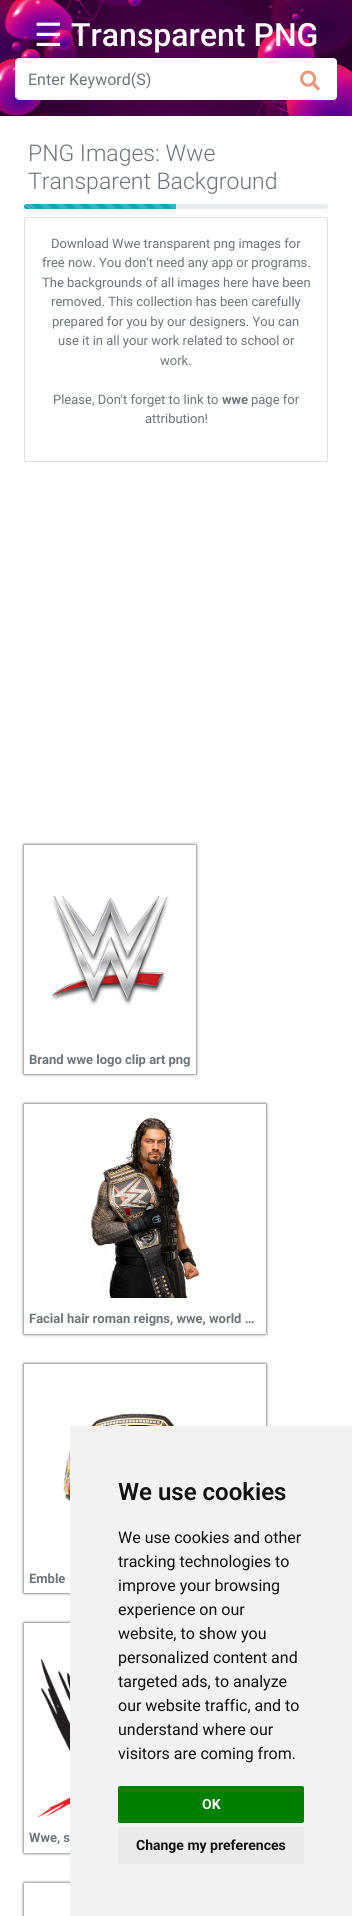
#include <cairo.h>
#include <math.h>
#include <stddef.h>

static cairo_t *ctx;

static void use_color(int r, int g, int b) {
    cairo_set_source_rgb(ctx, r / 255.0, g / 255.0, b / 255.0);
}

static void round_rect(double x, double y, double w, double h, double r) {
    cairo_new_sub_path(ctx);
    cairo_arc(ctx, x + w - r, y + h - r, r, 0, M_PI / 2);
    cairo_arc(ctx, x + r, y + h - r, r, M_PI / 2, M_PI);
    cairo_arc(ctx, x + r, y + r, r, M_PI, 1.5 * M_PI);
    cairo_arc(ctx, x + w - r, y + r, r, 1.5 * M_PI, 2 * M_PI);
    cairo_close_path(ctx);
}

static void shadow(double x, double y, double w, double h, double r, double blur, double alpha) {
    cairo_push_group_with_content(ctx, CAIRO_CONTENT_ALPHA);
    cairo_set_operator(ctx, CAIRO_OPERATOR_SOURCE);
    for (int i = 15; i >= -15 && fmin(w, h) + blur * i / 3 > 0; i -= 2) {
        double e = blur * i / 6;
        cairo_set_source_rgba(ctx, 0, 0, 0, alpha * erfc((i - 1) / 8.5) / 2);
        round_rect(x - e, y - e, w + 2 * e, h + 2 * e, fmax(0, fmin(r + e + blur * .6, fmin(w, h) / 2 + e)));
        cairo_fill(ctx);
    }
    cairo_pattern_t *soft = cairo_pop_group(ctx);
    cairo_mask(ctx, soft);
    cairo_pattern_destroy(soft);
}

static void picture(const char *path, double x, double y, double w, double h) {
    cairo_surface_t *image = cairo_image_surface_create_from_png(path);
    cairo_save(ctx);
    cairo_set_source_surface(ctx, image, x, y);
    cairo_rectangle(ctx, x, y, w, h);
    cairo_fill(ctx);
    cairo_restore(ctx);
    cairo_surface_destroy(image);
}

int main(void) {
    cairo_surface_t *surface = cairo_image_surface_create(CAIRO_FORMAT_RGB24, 352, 1916);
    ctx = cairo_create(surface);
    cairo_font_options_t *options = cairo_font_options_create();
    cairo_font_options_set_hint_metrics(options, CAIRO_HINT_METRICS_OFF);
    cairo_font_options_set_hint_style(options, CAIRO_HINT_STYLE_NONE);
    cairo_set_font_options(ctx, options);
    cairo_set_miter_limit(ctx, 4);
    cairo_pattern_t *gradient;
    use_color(255, 255, 255);
    cairo_paint(ctx);
    picture("img1.png", 0, 0, 352, 116);
    cairo_select_font_face(ctx, "DejaVu Sans", CAIRO_FONT_SLANT_NORMAL, CAIRO_FONT_WEIGHT_NORMAL);
    cairo_set_font_size(ctx, 32);
    use_color(255, 255, 255);
    cairo_move_to(ctx, 34, 46);
    cairo_show_text(ctx, "☰");
    cairo_select_font_face(ctx, "Roboto Medium", CAIRO_FONT_SLANT_NORMAL, CAIRO_FONT_WEIGHT_NORMAL);
    cairo_move_to(ctx, 71, 46);
    cairo_show_text(ctx, "Transparent PNG");
    cairo_new_path(ctx);
    cairo_move_to(ctx, 19, 59);
    cairo_line_to(ctx, 284, 59);
    cairo_line_to(ctx, 284, 99);
    cairo_line_to(ctx, 19, 99);
    cairo_curve_to(ctx, 17.5, 99, 16, 97.5, 16, 96);
    cairo_line_to(ctx, 16, 62);
    cairo_curve_to(ctx, 16, 60.5, 17.5, 59, 19, 59);
    cairo_close_path(ctx);
    cairo_fill(ctx);
    cairo_set_fill_rule(ctx, CAIRO_FILL_RULE_EVEN_ODD);
    cairo_new_path(ctx);
    cairo_move_to(ctx, 19, 58);
    cairo_line_to(ctx, 284, 58);
    cairo_line_to(ctx, 284, 100);
    cairo_line_to(ctx, 19, 100);
    cairo_curve_to(ctx, 17, 100, 15, 98, 15, 96);
    cairo_line_to(ctx, 15, 62);
    cairo_curve_to(ctx, 15, 60, 17, 58, 19, 58);
    cairo_close_path(ctx);
    cairo_move_to(ctx, 19, 59);
    cairo_line_to(ctx, 284, 59);
    cairo_line_to(ctx, 284, 99);
    cairo_line_to(ctx, 19, 99);
    cairo_curve_to(ctx, 17, 99, 16, 98, 16, 96);
    cairo_line_to(ctx, 16, 62);
    cairo_curve_to(ctx, 16, 60, 17, 59, 19, 59);
    cairo_close_path(ctx);
    cairo_fill(ctx);
    cairo_select_font_face(ctx, "Roboto", CAIRO_FONT_SLANT_NORMAL, CAIRO_FONT_WEIGHT_NORMAL);
    cairo_set_font_size(ctx, 16);
    use_color(108, 117, 125);
    cairo_move_to(ctx, 28, 85);
    cairo_show_text(ctx, "Enter Keyword(S)");
    use_color(255, 255, 255);
    cairo_new_path(ctx);
    cairo_move_to(ctx, 284, 58);
    cairo_line_to(ctx, 333, 58);
    cairo_curve_to(ctx, 335, 58, 337, 60, 337, 62);
    cairo_line_to(ctx, 337, 96);
    cairo_curve_to(ctx, 337, 98, 335, 100, 333, 100);
    cairo_line_to(ctx, 284, 100);
    cairo_close_path(ctx);
    cairo_fill(ctx);
    cairo_new_path(ctx);
    cairo_move_to(ctx, 284, 58);
    cairo_line_to(ctx, 333, 58);
    cairo_curve_to(ctx, 335, 58, 337, 60, 337, 62);
    cairo_line_to(ctx, 337, 96);
    cairo_curve_to(ctx, 337, 98, 335, 100, 333, 100);
    cairo_line_to(ctx, 284, 100);
    cairo_close_path(ctx);
    cairo_move_to(ctx, 284, 59);
    cairo_line_to(ctx, 333, 59);
    cairo_curve_to(ctx, 335, 59, 336, 60, 336, 62);
    cairo_line_to(ctx, 336, 96);
    cairo_curve_to(ctx, 336, 98, 335, 99, 333, 99);
    cairo_line_to(ctx, 284, 99);
    cairo_close_path(ctx);
    cairo_fill(ctx);
    picture("img2.png", 300, 70, 20, 21);
    cairo_select_font_face(ctx, "Roboto Light", CAIRO_FONT_SLANT_NORMAL, CAIRO_FONT_WEIGHT_NORMAL);
    cairo_set_font_size(ctx, 23);
    use_color(108, 117, 125);
    cairo_move_to(ctx, 28, 161);
    cairo_show_text(ctx, "PNG Images: Wwe");
    cairo_move_to(ctx, 28, 189);
    cairo_show_text(ctx, "Transparent Background");
    use_color(233, 236, 239);
    round_rect(24, 204, 304, 5, 2.5);
    cairo_fill(ctx);
    use_color(23, 162, 184);
    cairo_new_path(ctx);
    cairo_move_to(ctx, 26.5, 204);
    cairo_line_to(ctx, 176, 204);
    cairo_line_to(ctx, 176, 209);
    cairo_line_to(ctx, 26.5, 209);
    cairo_curve_to(ctx, 25, 209, 24, 208, 24, 206.5);
    cairo_curve_to(ctx, 24, 205, 25, 204, 26.5, 204);
    cairo_close_path(ctx);
    cairo_fill(ctx);
    gradient = cairo_pattern_create_linear(24, 220, 40, 204);
    cairo_pattern_add_color_stop_rgba(gradient, 0.25, 1, 1, 1, 0.15);
    cairo_pattern_add_color_stop_rgba(gradient, 0.25, 1, 1, 1, 0);
    cairo_pattern_add_color_stop_rgba(gradient, 0.5, 1, 1, 1, 0);
    cairo_pattern_add_color_stop_rgba(gradient, 0.5, 1, 1, 1, 0.15);
    cairo_pattern_add_color_stop_rgba(gradient, 0.75, 1, 1, 1, 0.15);
    cairo_pattern_add_color_stop_rgba(gradient, 0.75, 1, 1, 1, 0);
    cairo_pattern_add_color_stop_rgba(gradient, 1, 0, 0, 0, 0);
    cairo_set_source(ctx, gradient);
    cairo_pattern_destroy(gradient);
    cairo_new_path(ctx);
    cairo_move_to(ctx, 26.5, 204);
    cairo_line_to(ctx, 40, 204);
    cairo_line_to(ctx, 40, 209);
    cairo_line_to(ctx, 26.5, 209);
    cairo_curve_to(ctx, 25, 209, 24, 208, 24, 206.5);
    cairo_curve_to(ctx, 24, 205, 25, 204, 26.5, 204);
    cairo_close_path(ctx);
    cairo_fill(ctx);
    gradient = cairo_pattern_create_linear(40, 220, 56, 204);
    cairo_pattern_add_color_stop_rgba(gradient, 0.25, 0.227, 0.69, 0.765, 1);
    cairo_pattern_add_color_stop_rgba(gradient, 0.25, 0.09, 0.635, 0.722, 1);
    cairo_pattern_add_color_stop_rgba(gradient, 0.5, 0.09, 0.635, 0.722, 1);
    cairo_pattern_add_color_stop_rgba(gradient, 0.5, 0.227, 0.69, 0.765, 1);
    cairo_pattern_add_color_stop_rgba(gradient, 0.75, 0.227, 0.69, 0.765, 1);
    cairo_pattern_add_color_stop_rgba(gradient, 0.75, 0.09, 0.635, 0.722, 1);
    cairo_pattern_add_color_stop_rgba(gradient, 1, 0.09, 0.635, 0.722, 1);
    cairo_set_source(ctx, gradient);
    cairo_pattern_destroy(gradient);
    cairo_rectangle(ctx, 40, 204, 16, 5);
    cairo_fill(ctx);
    gradient = cairo_pattern_create_linear(56, 220, 72, 204);
    cairo_pattern_add_color_stop_rgba(gradient, 0.25, 0.227, 0.69, 0.765, 1);
    cairo_pattern_add_color_stop_rgba(gradient, 0.25, 0.09, 0.635, 0.722, 1);
    cairo_pattern_add_color_stop_rgba(gradient, 0.5, 0.09, 0.635, 0.722, 1);
    cairo_pattern_add_color_stop_rgba(gradient, 0.5, 0.227, 0.69, 0.765, 1);
    cairo_pattern_add_color_stop_rgba(gradient, 0.75, 0.227, 0.69, 0.765, 1);
    cairo_pattern_add_color_stop_rgba(gradient, 0.75, 0.09, 0.635, 0.722, 1);
    cairo_pattern_add_color_stop_rgba(gradient, 1, 0.09, 0.635, 0.722, 1);
    cairo_set_source(ctx, gradient);
    cairo_pattern_destroy(gradient);
    cairo_rectangle(ctx, 56, 204, 16, 5);
    cairo_fill(ctx);
    gradient = cairo_pattern_create_linear(72, 220, 88, 204);
    cairo_pattern_add_color_stop_rgba(gradient, 0.25, 0.227, 0.69, 0.765, 1);
    cairo_pattern_add_color_stop_rgba(gradient, 0.25, 0.09, 0.635, 0.722, 1);
    cairo_pattern_add_color_stop_rgba(gradient, 0.5, 0.09, 0.635, 0.722, 1);
    cairo_pattern_add_color_stop_rgba(gradient, 0.5, 0.227, 0.69, 0.765, 1);
    cairo_pattern_add_color_stop_rgba(gradient, 0.75, 0.227, 0.69, 0.765, 1);
    cairo_pattern_add_color_stop_rgba(gradient, 0.75, 0.09, 0.635, 0.722, 1);
    cairo_pattern_add_color_stop_rgba(gradient, 1, 0.09, 0.635, 0.722, 1);
    cairo_set_source(ctx, gradient);
    cairo_pattern_destroy(gradient);
    cairo_rectangle(ctx, 72, 204, 16, 5);
    cairo_fill(ctx);
    gradient = cairo_pattern_create_linear(88, 220, 104, 204);
    cairo_pattern_add_color_stop_rgba(gradient, 0.25, 0.227, 0.69, 0.765, 1);
    cairo_pattern_add_color_stop_rgba(gradient, 0.25, 0.09, 0.635, 0.722, 1);
    cairo_pattern_add_color_stop_rgba(gradient, 0.5, 0.09, 0.635, 0.722, 1);
    cairo_pattern_add_color_stop_rgba(gradient, 0.5, 0.227, 0.69, 0.765, 1);
    cairo_pattern_add_color_stop_rgba(gradient, 0.75, 0.227, 0.69, 0.765, 1);
    cairo_pattern_add_color_stop_rgba(gradient, 0.75, 0.09, 0.635, 0.722, 1);
    cairo_pattern_add_color_stop_rgba(gradient, 1, 0.09, 0.635, 0.722, 1);
    cairo_set_source(ctx, gradient);
    cairo_pattern_destroy(gradient);
    cairo_rectangle(ctx, 88, 204, 16, 5);
    cairo_fill(ctx);
    gradient = cairo_pattern_create_linear(104, 220, 120, 204);
    cairo_pattern_add_color_stop_rgba(gradient, 0.25, 0.227, 0.69, 0.765, 1);
    cairo_pattern_add_color_stop_rgba(gradient, 0.25, 0.09, 0.635, 0.722, 1);
    cairo_pattern_add_color_stop_rgba(gradient, 0.5, 0.09, 0.635, 0.722, 1);
    cairo_pattern_add_color_stop_rgba(gradient, 0.5, 0.227, 0.69, 0.765, 1);
    cairo_pattern_add_color_stop_rgba(gradient, 0.75, 0.227, 0.69, 0.765, 1);
    cairo_pattern_add_color_stop_rgba(gradient, 0.75, 0.09, 0.635, 0.722, 1);
    cairo_pattern_add_color_stop_rgba(gradient, 1, 0.09, 0.635, 0.722, 1);
    cairo_set_source(ctx, gradient);
    cairo_pattern_destroy(gradient);
    cairo_rectangle(ctx, 104, 204, 16, 5);
    cairo_fill(ctx);
    gradient = cairo_pattern_create_linear(120, 220, 136, 204);
    cairo_pattern_add_color_stop_rgba(gradient, 0.25, 0.227, 0.69, 0.765, 1);
    cairo_pattern_add_color_stop_rgba(gradient, 0.25, 0.09, 0.635, 0.722, 1);
    cairo_pattern_add_color_stop_rgba(gradient, 0.5, 0.09, 0.635, 0.722, 1);
    cairo_pattern_add_color_stop_rgba(gradient, 0.5, 0.227, 0.69, 0.765, 1);
    cairo_pattern_add_color_stop_rgba(gradient, 0.75, 0.227, 0.69, 0.765, 1);
    cairo_pattern_add_color_stop_rgba(gradient, 0.75, 0.09, 0.635, 0.722, 1);
    cairo_pattern_add_color_stop_rgba(gradient, 1, 0.09, 0.635, 0.722, 1);
    cairo_set_source(ctx, gradient);
    cairo_pattern_destroy(gradient);
    cairo_rectangle(ctx, 120, 204, 16, 5);
    cairo_fill(ctx);
    gradient = cairo_pattern_create_linear(136, 220, 152, 204);
    cairo_pattern_add_color_stop_rgba(gradient, 0.25, 0.227, 0.69, 0.765, 1);
    cairo_pattern_add_color_stop_rgba(gradient, 0.25, 0.09, 0.635, 0.722, 1);
    cairo_pattern_add_color_stop_rgba(gradient, 0.5, 0.09, 0.635, 0.722, 1);
    cairo_pattern_add_color_stop_rgba(gradient, 0.5, 0.227, 0.69, 0.765, 1);
    cairo_pattern_add_color_stop_rgba(gradient, 0.75, 0.227, 0.69, 0.765, 1);
    cairo_pattern_add_color_stop_rgba(gradient, 0.75, 0.09, 0.635, 0.722, 1);
    cairo_pattern_add_color_stop_rgba(gradient, 1, 0.09, 0.635, 0.722, 1);
    cairo_set_source(ctx, gradient);
    cairo_pattern_destroy(gradient);
    cairo_rectangle(ctx, 136, 204, 16, 5);
    cairo_fill(ctx);
    gradient = cairo_pattern_create_linear(152, 220, 168, 204);
    cairo_pattern_add_color_stop_rgba(gradient, 0.25, 0.227, 0.69, 0.765, 1);
    cairo_pattern_add_color_stop_rgba(gradient, 0.25, 0.09, 0.635, 0.722, 1);
    cairo_pattern_add_color_stop_rgba(gradient, 0.5, 0.09, 0.635, 0.722, 1);
    cairo_pattern_add_color_stop_rgba(gradient, 0.5, 0.227, 0.69, 0.765, 1);
    cairo_pattern_add_color_stop_rgba(gradient, 0.75, 0.227, 0.69, 0.765, 1);
    cairo_pattern_add_color_stop_rgba(gradient, 0.75, 0.09, 0.635, 0.722, 1);
    cairo_pattern_add_color_stop_rgba(gradient, 1, 0.09, 0.635, 0.722, 1);
    cairo_set_source(ctx, gradient);
    cairo_pattern_destroy(gradient);
    cairo_rectangle(ctx, 152, 204, 16, 5);
    cairo_fill(ctx);
    gradient = cairo_pattern_create_linear(168, 220, 184, 204);
    cairo_pattern_add_color_stop_rgba(gradient, 0.25, 0.227, 0.69, 0.765, 1);
    cairo_pattern_add_color_stop_rgba(gradient, 0.25, 0.09, 0.635, 0.722, 1);
    cairo_pattern_add_color_stop_rgba(gradient, 0.5, 0.09, 0.635, 0.722, 1);
    cairo_pattern_add_color_stop_rgba(gradient, 0.5, 0.227, 0.69, 0.765, 1);
    cairo_pattern_add_color_stop_rgba(gradient, 0.75, 0.227, 0.69, 0.765, 1);
    cairo_pattern_add_color_stop_rgba(gradient, 0.75, 0.09, 0.635, 0.722, 1);
    cairo_pattern_add_color_stop_rgba(gradient, 1, 0.09, 0.635, 0.722, 1);
    cairo_set_source(ctx, gradient);
    cairo_pattern_destroy(gradient);
    cairo_rectangle(ctx, 168, 204, 8, 5);
    cairo_fill(ctx);
    cairo_rectangle(ctx, 24.5, 217.5, 303, 244);
    use_color(222, 226, 230);
    cairo_set_line_width(ctx, 1);
    cairo_stroke(ctx);
    cairo_select_font_face(ctx, "Roboto", CAIRO_FONT_SLANT_NORMAL, CAIRO_FONT_WEIGHT_NORMAL);
    cairo_set_font_size(ctx, 13);
    use_color(108, 117, 125);
    cairo_move_to(ctx, 51, 248);
    cairo_show_text(ctx, "Download Wwe transparent png images for");
    cairo_move_to(ctx, 42, 267);
    cairo_show_text(ctx, "free now. You don't need any app or programs.");
    cairo_move_to(ctx, 42, 287);
    cairo_show_text(ctx, "The backgrounds of all images here have been");
    cairo_move_to(ctx, 51, 306);
    cairo_show_text(ctx, "removed. This collection has been carefully");
    cairo_move_to(ctx, 52, 326);
    cairo_show_text(ctx, "prepared for you by our designers. You can");
    cairo_move_to(ctx, 58, 345);
    cairo_show_text(ctx, "use it in all your work related to school or");
    cairo_move_to(ctx, 160, 365);
    cairo_show_text(ctx, "work.");
    cairo_move_to(ctx, 53, 404);
    cairo_show_text(ctx, "Please, Don't forget to link to");
    cairo_select_font_face(ctx, "Roboto", CAIRO_FONT_SLANT_NORMAL, CAIRO_FONT_WEIGHT_BOLD);
    cairo_move_to(ctx, 222, 404);
    cairo_show_text(ctx, "wwe");
    cairo_select_font_face(ctx, "Roboto", CAIRO_FONT_SLANT_NORMAL, CAIRO_FONT_WEIGHT_NORMAL);
    cairo_move_to(ctx, 251, 404);
    cairo_show_text(ctx, "page for");
    cairo_move_to(ctx, 145, 423);
    cairo_show_text(ctx, "attribution!");
    cairo_save(ctx);
    cairo_new_path(ctx);
    cairo_move_to(ctx, 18, 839);
    cairo_line_to(ctx, 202, 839);
    cairo_line_to(ctx, 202, 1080);
    cairo_line_to(ctx, 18, 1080);
    cairo_close_path(ctx);
    cairo_move_to(ctx, 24, 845);
    cairo_line_to(ctx, 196, 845);
    cairo_line_to(ctx, 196, 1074);
    cairo_line_to(ctx, 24, 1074);
    cairo_close_path(ctx);
    cairo_clip(ctx);
    use_color(0, 0, 0);
    shadow(24, 845, 172, 229, 0, 1.5, 0.8);
    cairo_restore(ctx);
    picture("img3.png", 51, 896, 118, 109);
    cairo_select_font_face(ctx, "Roboto", CAIRO_FONT_SLANT_NORMAL, CAIRO_FONT_WEIGHT_BOLD);
    cairo_move_to(ctx, 29, 1064);
    cairo_show_text(ctx, "Brand wwe logo clip art png");
    cairo_save(ctx);
    cairo_new_path(ctx);
    cairo_move_to(ctx, 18, 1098);
    cairo_line_to(ctx, 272, 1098);
    cairo_line_to(ctx, 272, 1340);
    cairo_line_to(ctx, 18, 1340);
    cairo_close_path(ctx);
    cairo_move_to(ctx, 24, 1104);
    cairo_line_to(ctx, 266, 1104);
    cairo_line_to(ctx, 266, 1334);
    cairo_line_to(ctx, 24, 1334);
    cairo_close_path(ctx);
    cairo_clip(ctx);
    use_color(0, 0, 0);
    shadow(24, 1104, 242, 230, 0, 1.5, 0.8);
    cairo_restore(ctx);
    picture("img4.png", 90, 1118, 109, 180);
    cairo_move_to(ctx, 29, 1323);
    cairo_show_text(ctx, "Facial hair roman reigns, wwe, world …");
    cairo_save(ctx);
    cairo_new_path(ctx);
    cairo_move_to(ctx, 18, 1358);
    cairo_line_to(ctx, 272, 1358);
    cairo_line_to(ctx, 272, 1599);
    cairo_line_to(ctx, 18, 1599);
    cairo_close_path(ctx);
    cairo_move_to(ctx, 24, 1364);
    cairo_line_to(ctx, 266, 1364);
    cairo_line_to(ctx, 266, 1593);
    cairo_line_to(ctx, 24, 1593);
    cairo_close_path(ctx);
    cairo_clip(ctx);
    use_color(0, 0, 0);
    shadow(24, 1364, 242, 229, 0, 1.5, 0.8);
    cairo_restore(ctx);
    picture("img5.png", 63, 1413, 112, 88);
    cairo_move_to(ctx, 29, 1583);
    cairo_show_text(ctx, "Emble");
    cairo_save(ctx);
    cairo_new_path(ctx);
    cairo_move_to(ctx, 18, 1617);
    cairo_line_to(ctx, 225, 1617);
    cairo_line_to(ctx, 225, 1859);
    cairo_line_to(ctx, 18, 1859);
    cairo_close_path(ctx);
    cairo_move_to(ctx, 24, 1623);
    cairo_line_to(ctx, 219, 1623);
    cairo_line_to(ctx, 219, 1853);
    cairo_line_to(ctx, 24, 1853);
    cairo_close_path(ctx);
    cairo_clip(ctx);
    use_color(0, 0, 0);
    shadow(24, 1623, 195, 230, 0, 1.5, 0.8);
    cairo_restore(ctx);
    picture("img6.png", 38, 1658, 32, 159);
    cairo_move_to(ctx, 29, 1842);
    cairo_show_text(ctx, "Wwe, s");
    cairo_save(ctx);
    cairo_new_path(ctx);
    cairo_move_to(ctx, 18, 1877);
    cairo_line_to(ctx, 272, 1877);
    cairo_line_to(ctx, 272, 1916);
    cairo_line_to(ctx, 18, 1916);
    cairo_close_path(ctx);
    cairo_move_to(ctx, 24, 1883);
    cairo_line_to(ctx, 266, 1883);
    cairo_line_to(ctx, 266, 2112);
    cairo_line_to(ctx, 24, 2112);
    cairo_close_path(ctx);
    cairo_clip(ctx);
    use_color(0, 0, 0);
    shadow(24, 1883, 242, 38, 0, 1.5, 0.8);
    cairo_restore(ctx);
    use_color(242, 242, 242);
    cairo_rectangle(ctx, 70, 1426, 282, 490);
    cairo_fill(ctx);
    cairo_select_font_face(ctx, "Roboto SemiBold", CAIRO_FONT_SLANT_NORMAL, CAIRO_FONT_WEIGHT_NORMAL);
    cairo_set_font_size(ctx, 24);
    use_color(17, 17, 17);
    cairo_move_to(ctx, 118, 1500);
    cairo_show_text(ctx, "We use cookies");
    cairo_select_font_face(ctx, "Roboto", CAIRO_FONT_SLANT_NORMAL, CAIRO_FONT_WEIGHT_NORMAL);
    cairo_set_font_size(ctx, 16);
    cairo_move_to(ctx, 118, 1543);
    cairo_show_text(ctx, "We use cookies and other");
    cairo_move_to(ctx, 118, 1567);
    cairo_show_text(ctx, "tracking technologies to");
    cairo_move_to(ctx, 118, 1591);
    cairo_show_text(ctx, "improve your browsing");
    cairo_move_to(ctx, 118, 1615);
    cairo_show_text(ctx, "experience on our");
    cairo_move_to(ctx, 118, 1639);
    cairo_show_text(ctx, "website, to show you");
    cairo_move_to(ctx, 118, 1663);
    cairo_show_text(ctx, "personalized content and");
    cairo_move_to(ctx, 118, 1687);
    cairo_show_text(ctx, "targeted ads, to analyze");
    cairo_move_to(ctx, 118, 1711);
    cairo_show_text(ctx, "our website traffic, and to");
    cairo_move_to(ctx, 118, 1735);
    cairo_show_text(ctx, "understand where our");
    cairo_move_to(ctx, 118, 1759);
    cairo_show_text(ctx, "visitors are coming from.");
    use_color(0, 128, 0);
    round_rect(118, 1786, 186, 37, 2);
    cairo_fill(ctx);
    cairo_select_font_face(ctx, "Roboto", CAIRO_FONT_SLANT_NORMAL, CAIRO_FONT_WEIGHT_BOLD);
    cairo_set_font_size(ctx, 14);
    use_color(255, 255, 255);
    cairo_move_to(ctx, 202, 1809);
    cairo_show_text(ctx, "OK");
    use_color(234, 234, 234);
    round_rect(118, 1827, 186, 37, 2);
    cairo_fill(ctx);
    use_color(17, 17, 17);
    cairo_move_to(ctx, 136, 1850);
    cairo_show_text(ctx, "Change my preferences");
    cairo_surface_write_to_png(surface, "result.png");
    cairo_font_options_destroy(options);
    cairo_destroy(ctx);
    cairo_surface_destroy(surface);
    return 0;
}
